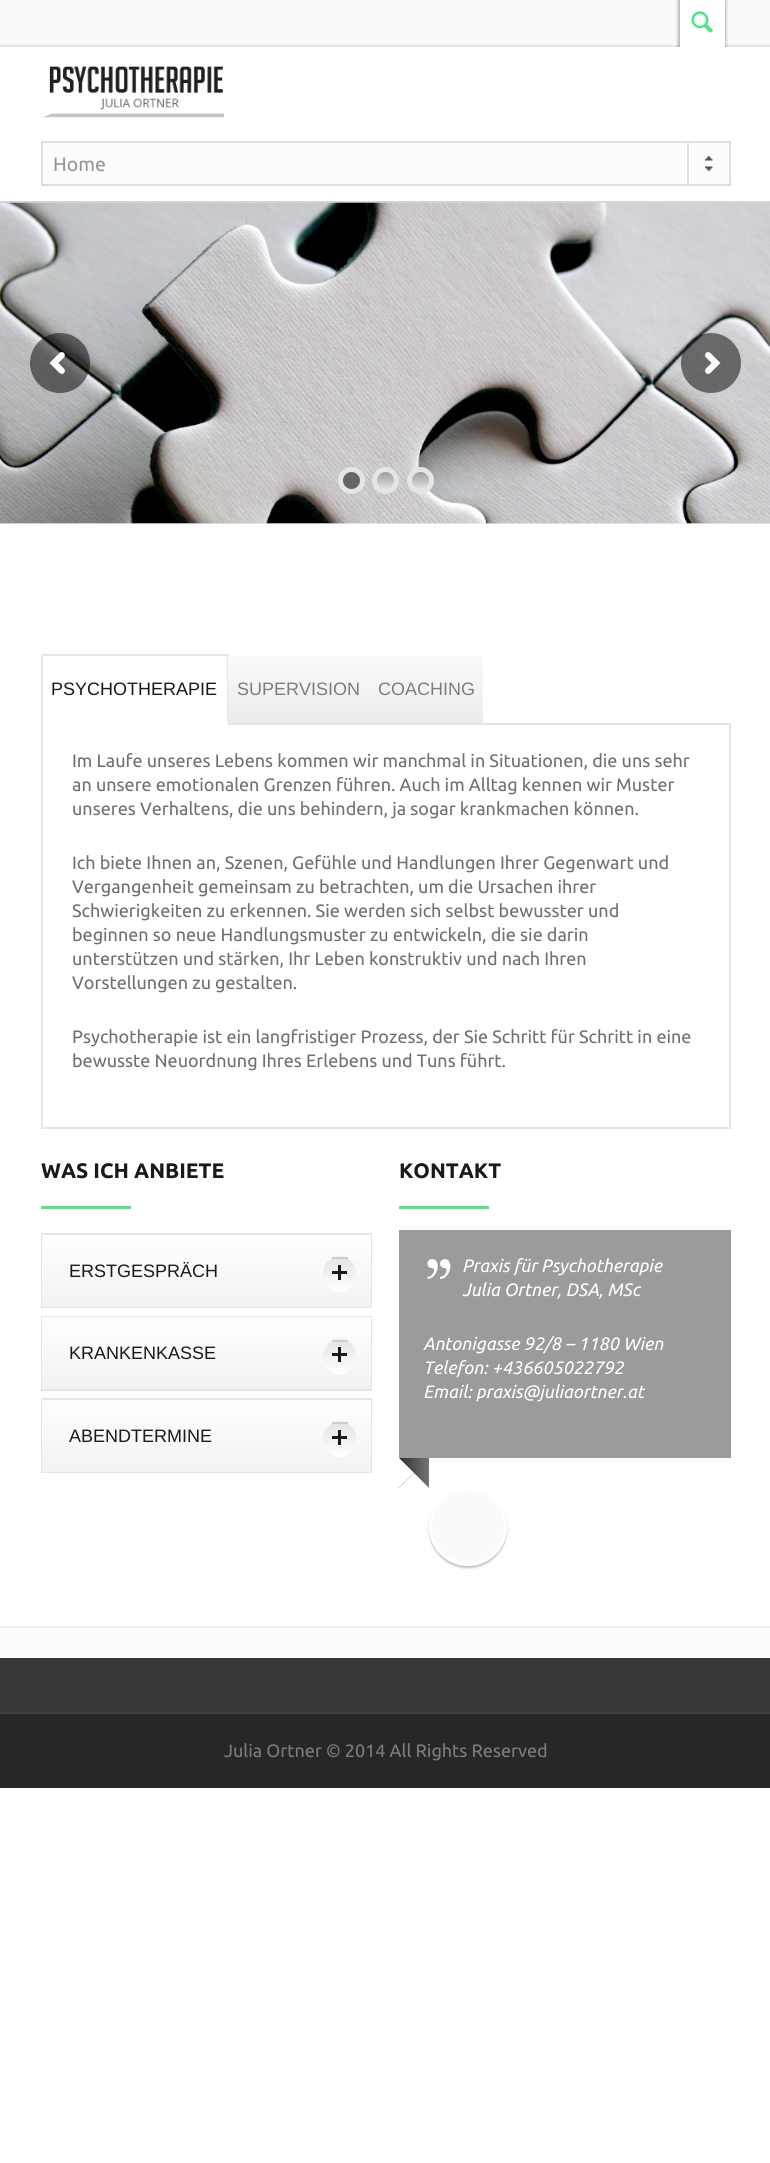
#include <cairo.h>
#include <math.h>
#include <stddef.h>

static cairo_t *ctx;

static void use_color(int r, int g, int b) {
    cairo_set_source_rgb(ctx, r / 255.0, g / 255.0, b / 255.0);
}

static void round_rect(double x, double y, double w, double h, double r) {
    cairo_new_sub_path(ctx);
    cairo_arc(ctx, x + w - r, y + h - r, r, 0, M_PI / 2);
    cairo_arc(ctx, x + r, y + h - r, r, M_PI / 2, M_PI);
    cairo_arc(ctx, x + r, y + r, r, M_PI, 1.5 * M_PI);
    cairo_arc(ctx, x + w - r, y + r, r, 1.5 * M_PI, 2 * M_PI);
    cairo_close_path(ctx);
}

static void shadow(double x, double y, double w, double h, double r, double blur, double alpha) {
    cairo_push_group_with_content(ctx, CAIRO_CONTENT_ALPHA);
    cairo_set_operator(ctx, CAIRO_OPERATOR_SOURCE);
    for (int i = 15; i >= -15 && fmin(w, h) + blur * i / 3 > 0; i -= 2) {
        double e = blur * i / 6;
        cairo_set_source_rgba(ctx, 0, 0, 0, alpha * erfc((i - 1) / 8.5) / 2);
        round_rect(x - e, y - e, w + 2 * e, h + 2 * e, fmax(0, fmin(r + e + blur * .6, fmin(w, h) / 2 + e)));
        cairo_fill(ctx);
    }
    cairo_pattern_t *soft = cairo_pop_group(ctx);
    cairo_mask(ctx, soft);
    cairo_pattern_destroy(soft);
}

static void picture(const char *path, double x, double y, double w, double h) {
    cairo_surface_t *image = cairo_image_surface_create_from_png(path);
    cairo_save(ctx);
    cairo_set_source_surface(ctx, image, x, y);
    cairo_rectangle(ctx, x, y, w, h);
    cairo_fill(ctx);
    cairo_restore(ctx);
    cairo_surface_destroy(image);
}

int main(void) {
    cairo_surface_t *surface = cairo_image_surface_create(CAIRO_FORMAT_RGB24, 770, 2163);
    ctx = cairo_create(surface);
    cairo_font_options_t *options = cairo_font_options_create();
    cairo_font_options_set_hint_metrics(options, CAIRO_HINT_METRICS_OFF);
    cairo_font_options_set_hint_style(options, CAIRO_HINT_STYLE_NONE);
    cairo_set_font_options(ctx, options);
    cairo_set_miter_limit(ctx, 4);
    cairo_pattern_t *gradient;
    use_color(255, 255, 255);
    cairo_paint(ctx);
    use_color(250, 250, 250);
    cairo_rectangle(ctx, 0, 0, 770, 45);
    cairo_fill(ctx);
    use_color(237, 237, 237);
    cairo_rectangle(ctx, 0, 45, 770, 2);
    cairo_fill(ctx);
    use_color(0, 0, 0);
    shadow(678, 0, 3, 48, 0, 1.5, 0.3);
    shadow(723, 0, 3, 48, 0, 1.5, 0.3);
    shadow(0, 47, 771, 156, 0, 2, 0.1);
    use_color(255, 255, 255);
    cairo_rectangle(ctx, 680, 0, 45, 47);
    cairo_fill(ctx);
    picture("img1.png", 691, 11, 22, 22);
    cairo_rectangle(ctx, 0, 47, 770, 154);
    cairo_fill(ctx);
    use_color(213, 213, 213);
    cairo_rectangle(ctx, 0, 201, 770, 2);
    cairo_fill(ctx);
    picture("img2.png", 42, 66, 182, 52);
    round_rect(42, 142, 688, 43, 2);
    use_color(118, 118, 118);
    cairo_stroke(ctx);
    use_color(252, 252, 252);
    round_rect(42, 142, 688, 43, 2);
    cairo_fill_preserve(ctx);
    use_color(224, 224, 224);
    cairo_stroke(ctx);
    cairo_select_font_face(ctx, "Ubuntu", CAIRO_FONT_SLANT_NORMAL, CAIRO_FONT_WEIGHT_NORMAL);
    cairo_set_font_size(ctx, 19.5);
    use_color(149, 149, 149);
    cairo_move_to(ctx, 53, 171);
    cairo_show_text(ctx, "Home");
    picture("img3.png", 705, 156, 8, 15);
    use_color(224, 224, 224);
    cairo_rectangle(ctx, 687, 141, 2, 44);
    cairo_fill(ctx);
    use_color(233, 233, 233);
    cairo_rectangle(ctx, 0, 523, 770, 1);
    cairo_fill(ctx);
    picture("img4.png", 0, 202, 770, 322);
    cairo_set_source_rgba(ctx, 0, 0, 0, 0.5);
    cairo_arc(ctx, 60, 363, 30, 0, 2 * M_PI);
    cairo_fill(ctx);
    picture("img5.png", 49, 352, 16, 22);
    cairo_arc(ctx, 711, 363, 30, 0, 2 * M_PI);
    cairo_fill(ctx);
    picture("img6.png", 705, 352, 16, 22);
    use_color(102, 102, 102);
    cairo_arc(ctx, 351.5, 480.5, 11, 0, 2 * M_PI);
    cairo_fill_preserve(ctx);
    use_color(229, 229, 229);
    cairo_set_line_width(ctx, 5);
    cairo_stroke(ctx);
    cairo_save(ctx);
    round_rect(372, 467, 27, 27, 13.5);
    cairo_clip(ctx);
    gradient = cairo_pattern_create_linear(386, 471, 386, 489);
    cairo_pattern_add_color_stop_rgba(gradient, 0, 0.6, 0.6, 0.6, 1);
    cairo_pattern_add_color_stop_rgba(gradient, 1, 0.882, 0.882, 0.882, 1);
    cairo_set_source(ctx, gradient);
    cairo_pattern_destroy(gradient);
    cairo_rectangle(ctx, 372, 471, 27, 18);
    cairo_fill(ctx);
    cairo_restore(ctx);
    cairo_arc(ctx, 385.5, 480.5, 11, 0, 2 * M_PI);
    cairo_stroke(ctx);
    cairo_save(ctx);
    round_rect(407, 467, 27, 27, 13.5);
    cairo_clip(ctx);
    gradient = cairo_pattern_create_linear(420, 471, 420, 489);
    cairo_pattern_add_color_stop_rgba(gradient, 0, 0.6, 0.6, 0.6, 1);
    cairo_pattern_add_color_stop_rgba(gradient, 1, 0.882, 0.882, 0.882, 1);
    cairo_set_source(ctx, gradient);
    cairo_pattern_destroy(gradient);
    cairo_rectangle(ctx, 407, 471, 27, 18);
    cairo_fill(ctx);
    cairo_restore(ctx);
    cairo_arc(ctx, 420.5, 480.5, 11, 0, 2 * M_PI);
    cairo_stroke(ctx);
    cairo_rectangle(ctx, 229, 723, 502, 2);
    cairo_fill(ctx);
    cairo_rectangle(ctx, 41, 654, 187, 2);
    cairo_fill(ctx);
    cairo_rectangle(ctx, 227, 654, 2, 71);
    cairo_fill(ctx);
    use_color(255, 255, 255);
    cairo_rectangle(ctx, 227, 723, 1, 2);
    cairo_fill(ctx);
    use_color(229, 229, 229);
    cairo_rectangle(ctx, 41, 654, 2, 71);
    cairo_fill(ctx);
    cairo_select_font_face(ctx, "Liberation Sans", CAIRO_FONT_SLANT_NORMAL, CAIRO_FONT_WEIGHT_NORMAL);
    cairo_set_font_size(ctx, 18);
    use_color(25, 25, 25);
    cairo_move_to(ctx, 51, 695);
    cairo_show_text(ctx, "PSYCHOTHERAPIE");
    gradient = cairo_pattern_create_linear(299, 656, 299, 723);
    cairo_pattern_add_color_stop_rgba(gradient, 0, 0.98, 0.98, 0.98, 1);
    cairo_pattern_add_color_stop_rgba(gradient, 1, 0.925, 0.925, 0.925, 1);
    cairo_set_source(ctx, gradient);
    cairo_pattern_destroy(gradient);
    cairo_rectangle(ctx, 228, 656, 141, 67);
    cairo_fill(ctx);
    use_color(125, 125, 125);
    cairo_move_to(ctx, 237, 695);
    cairo_show_text(ctx, "SUPERVISION");
    gradient = cairo_pattern_create_linear(426, 656, 426, 723);
    cairo_pattern_add_color_stop_rgba(gradient, 0, 0.98, 0.98, 0.98, 1);
    cairo_pattern_add_color_stop_rgba(gradient, 1, 0.925, 0.925, 0.925, 1);
    cairo_set_source(ctx, gradient);
    cairo_pattern_destroy(gradient);
    cairo_rectangle(ctx, 369, 656, 114, 67);
    cairo_fill(ctx);
    use_color(125, 125, 125);
    cairo_move_to(ctx, 378, 695);
    cairo_show_text(ctx, "COACHING");
    use_color(229, 229, 229);
    cairo_rectangle(ctx, 729, 725, 2, 403);
    cairo_fill(ctx);
    cairo_rectangle(ctx, 41, 1127, 690, 2);
    cairo_fill(ctx);
    cairo_rectangle(ctx, 41, 725, 2, 403);
    cairo_fill(ctx);
    cairo_select_font_face(ctx, "Ubuntu", CAIRO_FONT_SLANT_NORMAL, CAIRO_FONT_WEIGHT_NORMAL);
    use_color(111, 111, 111);
    cairo_move_to(ctx, 72, 767);
    cairo_show_text(ctx, "Im Laufe unseres Lebens kommen wir manchmal in Situationen, die uns sehr");
    cairo_move_to(ctx, 72, 791);
    cairo_show_text(ctx, "an unsere emotionalen Grenzen führen. Auch im Alltag kennen wir Muster");
    cairo_move_to(ctx, 72, 815);
    cairo_show_text(ctx, "unseres Verhaltens, die uns behindern, ja sogar krankmachen können.");
    cairo_move_to(ctx, 72, 869);
    cairo_show_text(ctx, "Ich biete Ihnen an, Szenen, Gefühle und Handlungen Ihrer Gegenwart und");
    cairo_move_to(ctx, 72, 893);
    cairo_show_text(ctx, "Vergangenheit gemeinsam zu betrachten, um die Ursachen ihrer");
    cairo_move_to(ctx, 72, 917);
    cairo_show_text(ctx, "Schwierigkeiten zu erkennen. Sie werden sich selbst bewusster und");
    cairo_move_to(ctx, 72, 941);
    cairo_show_text(ctx, "beginnen so neue Handlungsmuster zu entwickeln, die sie darin");
    cairo_move_to(ctx, 72, 965);
    cairo_show_text(ctx, "unterstützen und stärken, Ihr Leben konstruktiv und nach Ihren");
    cairo_move_to(ctx, 72, 989);
    cairo_show_text(ctx, "Vorstellungen zu gestalten.");
    cairo_move_to(ctx, 72, 1043);
    cairo_show_text(ctx, "Psychotherapie ist ein langfristiger Prozess, der Sie Schritt für Schritt in eine");
    cairo_move_to(ctx, 72, 1067);
    cairo_show_text(ctx, "bewusste Neuordnung Ihres Erlebens und Tuns führt.");
    cairo_select_font_face(ctx, "Ubuntu", CAIRO_FONT_SLANT_NORMAL, CAIRO_FONT_WEIGHT_BOLD);
    cairo_set_font_size(ctx, 21);
    use_color(25, 25, 25);
    cairo_move_to(ctx, 41, 1178);
    cairo_show_text(ctx, "WAS ICH ANBIETE");
    use_color(83, 226, 138);
    cairo_rectangle(ctx, 41, 1206, 90, 3);
    cairo_fill(ctx);
    cairo_rectangle(ctx, 42, 1234, 329, 73);
    use_color(229, 229, 229);
    cairo_set_line_width(ctx, 2);
    cairo_stroke(ctx);
    gradient = cairo_pattern_create_linear(206, 1235, 206, 1307);
    cairo_pattern_add_color_stop_rgba(gradient, 0, 1, 1, 1, 1);
    cairo_pattern_add_color_stop_rgba(gradient, 1, 0.949, 0.949, 0.949, 1);
    cairo_set_source(ctx, gradient);
    cairo_pattern_destroy(gradient);
    cairo_rectangle(ctx, 42, 1235, 329, 72);
    cairo_fill(ctx);
    cairo_select_font_face(ctx, "Liberation Sans", CAIRO_FONT_SLANT_NORMAL, CAIRO_FONT_WEIGHT_NORMAL);
    cairo_set_font_size(ctx, 18);
    use_color(25, 25, 25);
    cairo_move_to(ctx, 69, 1277);
    cairo_show_text(ctx, "ERSTGESPRÄCH");
    cairo_set_source_rgba(ctx, 0, 0, 0, 0.05);
    cairo_new_path(ctx);
    cairo_move_to(ctx, 339.5, 1256);
    cairo_curve_to(ctx, 332, 1256, 325.5, 1261, 323.5, 1268);
    cairo_curve_to(ctx, 325, 1265, 327, 1262, 329.5, 1260);
    cairo_curve_to(ctx, 344, 1250, 360.5, 1266, 354, 1281);
    cairo_curve_to(ctx, 360, 1270, 352.5, 1256, 339.5, 1256);
    cairo_close_path(ctx);
    cairo_fill(ctx);
    cairo_save(ctx);
    round_rect(323, 1257, 33, 35, 16.5);
    cairo_clip(ctx);
    gradient = cairo_pattern_create_linear(339, 1259, 339, 1292);
    cairo_pattern_add_color_stop_rgba(gradient, 0, 0.898, 0.898, 0.898, 1);
    cairo_pattern_add_color_stop_rgba(gradient, 1, 1, 1, 1, 1);
    cairo_set_source(ctx, gradient);
    cairo_pattern_destroy(gradient);
    cairo_new_path(ctx);
    cairo_move_to(ctx, 323, 1259);
    cairo_line_to(ctx, 356, 1259);
    cairo_line_to(ctx, 356, 1275.5);
    cairo_curve_to(ctx, 356, 1284.5, 348.5, 1292, 339.5, 1292);
    cairo_curve_to(ctx, 330.5, 1292, 323, 1284.5, 323, 1275.5);
    cairo_close_path(ctx);
    cairo_fill(ctx);
    cairo_restore(ctx);
    use_color(206, 206, 206);
    cairo_rectangle(ctx, 332, 1257, 16, 2);
    cairo_fill(ctx);
    use_color(25, 25, 25);
    cairo_rectangle(ctx, 332, 1271, 15, 3);
    cairo_fill(ctx);
    cairo_rectangle(ctx, 338, 1265, 3, 15);
    cairo_fill(ctx);
    cairo_rectangle(ctx, 42, 1317, 329, 73);
    use_color(229, 229, 229);
    cairo_stroke(ctx);
    gradient = cairo_pattern_create_linear(206, 1317, 206, 1389);
    cairo_pattern_add_color_stop_rgba(gradient, 0, 1, 1, 1, 1);
    cairo_pattern_add_color_stop_rgba(gradient, 1, 0.949, 0.949, 0.949, 1);
    cairo_set_source(ctx, gradient);
    cairo_pattern_destroy(gradient);
    cairo_rectangle(ctx, 42, 1317, 329, 72);
    cairo_fill(ctx);
    use_color(25, 25, 25);
    cairo_move_to(ctx, 69, 1359);
    cairo_show_text(ctx, "KRANKENKASSE");
    cairo_set_source_rgba(ctx, 0, 0, 0, 0.05);
    cairo_new_path(ctx);
    cairo_move_to(ctx, 339.5, 1338);
    cairo_curve_to(ctx, 331.5, 1338, 324.5, 1344, 323.5, 1351.5);
    cairo_curve_to(ctx, 324.5, 1348, 326.5, 1345, 329, 1343);
    cairo_curve_to(ctx, 344.5, 1331, 363, 1351, 352.5, 1366.5);
    cairo_curve_to(ctx, 361, 1356, 354, 1338, 339.5, 1338);
    cairo_close_path(ctx);
    cairo_fill(ctx);
    cairo_save(ctx);
    round_rect(323, 1340, 33, 34, 16.5);
    cairo_clip(ctx);
    gradient = cairo_pattern_create_linear(339, 1341, 339, 1374);
    cairo_pattern_add_color_stop_rgba(gradient, 0, 0.898, 0.898, 0.898, 1);
    cairo_pattern_add_color_stop_rgba(gradient, 1, 1, 1, 1, 1);
    cairo_set_source(ctx, gradient);
    cairo_pattern_destroy(gradient);
    cairo_new_path(ctx);
    cairo_move_to(ctx, 323, 1341);
    cairo_line_to(ctx, 356, 1341);
    cairo_line_to(ctx, 356, 1357.5);
    cairo_curve_to(ctx, 356, 1366.5, 348.5, 1374, 339.5, 1374);
    cairo_curve_to(ctx, 330.5, 1374, 323, 1366.5, 323, 1357.5);
    cairo_close_path(ctx);
    cairo_fill(ctx);
    cairo_restore(ctx);
    use_color(206, 206, 206);
    cairo_rectangle(ctx, 332, 1340, 16, 2);
    cairo_fill(ctx);
    use_color(25, 25, 25);
    cairo_rectangle(ctx, 332, 1353, 15, 3);
    cairo_fill(ctx);
    cairo_rectangle(ctx, 338, 1347, 3, 15);
    cairo_fill(ctx);
    cairo_rectangle(ctx, 42, 1399, 329, 73);
    use_color(229, 229, 229);
    cairo_stroke(ctx);
    gradient = cairo_pattern_create_linear(206, 1400, 206, 1472);
    cairo_pattern_add_color_stop_rgba(gradient, 0, 1, 1, 1, 1);
    cairo_pattern_add_color_stop_rgba(gradient, 1, 0.949, 0.949, 0.949, 1);
    cairo_set_source(ctx, gradient);
    cairo_pattern_destroy(gradient);
    cairo_rectangle(ctx, 42, 1400, 329, 72);
    cairo_fill(ctx);
    use_color(25, 25, 25);
    cairo_move_to(ctx, 69, 1442);
    cairo_show_text(ctx, "ABENDTERMINE");
    cairo_set_source_rgba(ctx, 0, 0, 0, 0.05);
    cairo_new_path(ctx);
    cairo_move_to(ctx, 339.5, 1421);
    cairo_curve_to(ctx, 332, 1421, 325.5, 1426, 323.5, 1433);
    cairo_curve_to(ctx, 325, 1430, 327, 1427, 329.5, 1425);
    cairo_curve_to(ctx, 344, 1415, 360.5, 1431, 354, 1446);
    cairo_curve_to(ctx, 360, 1435, 352.5, 1421, 339.5, 1421);
    cairo_close_path(ctx);
    cairo_fill(ctx);
    cairo_save(ctx);
    round_rect(323, 1422, 33, 35, 16.5);
    cairo_clip(ctx);
    gradient = cairo_pattern_create_linear(339, 1424, 339, 1457);
    cairo_pattern_add_color_stop_rgba(gradient, 0, 0.898, 0.898, 0.898, 1);
    cairo_pattern_add_color_stop_rgba(gradient, 1, 1, 1, 1, 1);
    cairo_set_source(ctx, gradient);
    cairo_pattern_destroy(gradient);
    cairo_new_path(ctx);
    cairo_move_to(ctx, 323, 1424);
    cairo_line_to(ctx, 356, 1424);
    cairo_line_to(ctx, 356, 1440.5);
    cairo_curve_to(ctx, 356, 1449.5, 348.5, 1457, 339.5, 1457);
    cairo_curve_to(ctx, 330.5, 1457, 323, 1449.5, 323, 1440.5);
    cairo_close_path(ctx);
    cairo_fill(ctx);
    cairo_restore(ctx);
    use_color(206, 206, 206);
    cairo_rectangle(ctx, 332, 1422, 16, 2);
    cairo_fill(ctx);
    use_color(25, 25, 25);
    cairo_rectangle(ctx, 332, 1436, 15, 3);
    cairo_fill(ctx);
    cairo_rectangle(ctx, 338, 1430, 3, 15);
    cairo_fill(ctx);
    cairo_select_font_face(ctx, "Ubuntu", CAIRO_FONT_SLANT_NORMAL, CAIRO_FONT_WEIGHT_BOLD);
    cairo_set_font_size(ctx, 21);
    cairo_move_to(ctx, 399, 1178);
    cairo_show_text(ctx, "KONTAKT");
    use_color(83, 226, 138);
    cairo_rectangle(ctx, 399, 1206, 90, 3);
    cairo_fill(ctx);
    use_color(155, 155, 155);
    cairo_rectangle(ctx, 399, 1230, 332, 228);
    cairo_fill(ctx);
    picture("img7.png", 427, 1259, 24, 20);
    cairo_select_font_face(ctx, "Ubuntu", CAIRO_FONT_SLANT_ITALIC, CAIRO_FONT_WEIGHT_NORMAL);
    cairo_set_font_size(ctx, 18);
    use_color(255, 255, 255);
    cairo_move_to(ctx, 462, 1272);
    cairo_show_text(ctx, "Praxis für Psychotherapie");
    cairo_move_to(ctx, 462, 1296);
    cairo_show_text(ctx, "Julia Ortner, DSA, MSc");
    cairo_move_to(ctx, 423, 1350);
    cairo_show_text(ctx, "Antonigasse 92/8 – 1180 Wien");
    cairo_move_to(ctx, 423, 1374);
    cairo_show_text(ctx, "Telefon: +436605022792");
    cairo_move_to(ctx, 423, 1398);
    cairo_show_text(ctx, "Email: praxis@juliaortner.at");
    gradient = cairo_pattern_create_linear(399, 1473, 429, 1473);
    cairo_pattern_add_color_stop_rgba(gradient, 0, 0.192, 0.192, 0.192, 1);
    cairo_pattern_add_color_stop_rgba(gradient, 1, 0.451, 0.451, 0.451, 1);
    cairo_set_source(ctx, gradient);
    cairo_pattern_destroy(gradient);
    cairo_rectangle(ctx, 399, 1458, 30, 30);
    cairo_fill(ctx);
    use_color(255, 255, 255);
    cairo_new_path(ctx);
    cairo_move_to(ctx, 429, 1488);
    cairo_line_to(ctx, 399, 1488);
    cairo_line_to(ctx, 414, 1473);
    cairo_close_path(ctx);
    cairo_fill(ctx);
    cairo_new_path(ctx);
    cairo_move_to(ctx, 399, 1488);
    cairo_line_to(ctx, 399, 1458);
    cairo_line_to(ctx, 414, 1473);
    cairo_close_path(ctx);
    cairo_fill(ctx);
    cairo_save(ctx);
    cairo_set_fill_rule(ctx, CAIRO_FILL_RULE_EVEN_ODD);
    cairo_new_path(ctx);
    cairo_move_to(ctx, 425, 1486);
    cairo_line_to(ctx, 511, 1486);
    cairo_line_to(ctx, 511, 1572);
    cairo_line_to(ctx, 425, 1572);
    cairo_close_path(ctx);
    cairo_move_to(ctx, 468, 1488);
    cairo_curve_to(ctx, 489.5, 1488, 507, 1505.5, 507, 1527);
    cairo_curve_to(ctx, 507, 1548.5, 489.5, 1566, 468, 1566);
    cairo_curve_to(ctx, 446.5, 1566, 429, 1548.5, 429, 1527);
    cairo_curve_to(ctx, 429, 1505.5, 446.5, 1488, 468, 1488);
    cairo_close_path(ctx);
    cairo_clip(ctx);
    use_color(0, 0, 0);
    shadow(429, 1490, 78, 78, 39, 1, 0.25);
    cairo_restore(ctx);
    use_color(250, 250, 250);
    cairo_arc(ctx, 468, 1527, 36, 0, 2 * M_PI);
    cairo_fill(ctx);
    use_color(252, 252, 252);
    cairo_rectangle(ctx, 0, 1628, 770, 30);
    cairo_fill(ctx);
    use_color(237, 237, 237);
    cairo_rectangle(ctx, 0, 1626, 770, 2);
    cairo_fill(ctx);
    use_color(55, 55, 55);
    cairo_rectangle(ctx, 0, 1658, 770, 54);
    cairo_fill(ctx);
    use_color(63, 63, 63);
    cairo_rectangle(ctx, 0, 1712, 770, 2);
    cairo_fill(ctx);
    use_color(39, 39, 39);
    cairo_rectangle(ctx, 0, 1714, 770, 74);
    cairo_fill(ctx);
    cairo_select_font_face(ctx, "Ubuntu", CAIRO_FONT_SLANT_NORMAL, CAIRO_FONT_WEIGHT_NORMAL);
    use_color(125, 125, 125);
    cairo_move_to(ctx, 224, 1757);
    cairo_show_text(ctx, "Julia Ortner © 2014 All Rights Reserved");
    cairo_surface_write_to_png(surface, "result.png");
    cairo_font_options_destroy(options);
    cairo_destroy(ctx);
    cairo_surface_destroy(surface);
    return 0;
}
